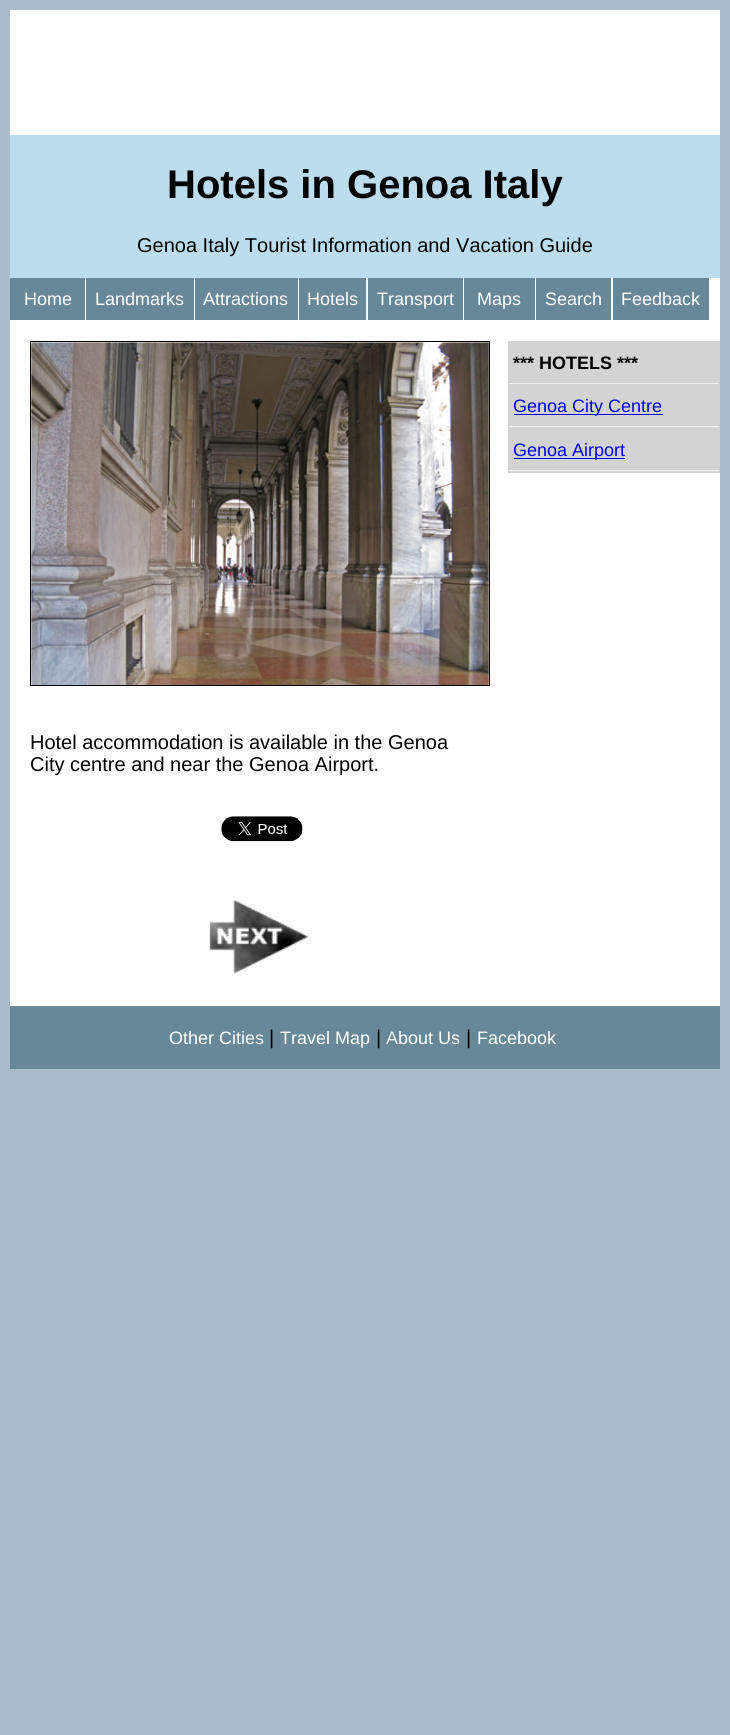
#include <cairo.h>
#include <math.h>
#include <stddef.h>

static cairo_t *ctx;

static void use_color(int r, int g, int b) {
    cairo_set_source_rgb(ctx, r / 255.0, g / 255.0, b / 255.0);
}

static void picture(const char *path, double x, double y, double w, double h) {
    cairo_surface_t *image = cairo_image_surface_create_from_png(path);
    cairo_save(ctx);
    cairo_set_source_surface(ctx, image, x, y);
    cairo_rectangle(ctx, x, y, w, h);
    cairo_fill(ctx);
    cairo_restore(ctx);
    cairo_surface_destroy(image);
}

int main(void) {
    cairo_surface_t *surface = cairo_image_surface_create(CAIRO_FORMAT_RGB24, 730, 1735);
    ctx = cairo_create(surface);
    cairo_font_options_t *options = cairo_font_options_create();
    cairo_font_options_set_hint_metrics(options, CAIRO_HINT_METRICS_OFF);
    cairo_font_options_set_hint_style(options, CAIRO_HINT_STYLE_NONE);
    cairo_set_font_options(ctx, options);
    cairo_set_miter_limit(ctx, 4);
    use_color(170, 187, 204);
    cairo_paint(ctx);
    use_color(255, 255, 255);
    cairo_rectangle(ctx, 10, 10, 710, 996);
    cairo_fill(ctx);
    use_color(187, 221, 238);
    cairo_rectangle(ctx, 10, 135, 710, 143);
    cairo_fill(ctx);
    cairo_select_font_face(ctx, "Liberation Sans", CAIRO_FONT_SLANT_NORMAL, CAIRO_FONT_WEIGHT_BOLD);
    cairo_set_font_size(ctx, 40);
    use_color(0, 0, 0);
    cairo_move_to(ctx, 167, 198);
    cairo_show_text(ctx, "Hotels in Genoa Italy");
    cairo_select_font_face(ctx, "Liberation Sans", CAIRO_FONT_SLANT_NORMAL, CAIRO_FONT_WEIGHT_NORMAL);
    cairo_set_font_size(ctx, 20);
    cairo_move_to(ctx, 137, 252);
    cairo_show_text(ctx, "Genoa Italy Tourist Information and Vacation Guide");
    use_color(102, 136, 153);
    cairo_rectangle(ctx, 10, 278, 75, 42);
    cairo_fill(ctx);
    cairo_set_font_size(ctx, 18);
    use_color(255, 255, 255);
    cairo_move_to(ctx, 24, 305);
    cairo_show_text(ctx, "Home");
    use_color(102, 136, 153);
    cairo_rectangle(ctx, 86, 278, 108, 42);
    cairo_fill(ctx);
    use_color(255, 255, 255);
    cairo_move_to(ctx, 95, 305);
    cairo_show_text(ctx, "Landmarks");
    use_color(102, 136, 153);
    cairo_rectangle(ctx, 195, 278, 103, 42);
    cairo_fill(ctx);
    use_color(255, 255, 255);
    cairo_move_to(ctx, 203, 305);
    cairo_show_text(ctx, "Attractions");
    use_color(102, 136, 153);
    cairo_rectangle(ctx, 299, 278, 67, 42);
    cairo_fill(ctx);
    use_color(255, 255, 255);
    cairo_move_to(ctx, 307, 305);
    cairo_show_text(ctx, "Hotels");
    use_color(102, 136, 153);
    cairo_rectangle(ctx, 368, 278, 95, 42);
    cairo_fill(ctx);
    use_color(255, 255, 255);
    cairo_move_to(ctx, 377, 305);
    cairo_show_text(ctx, "Transport");
    use_color(102, 136, 153);
    cairo_rectangle(ctx, 464, 278, 71, 42);
    cairo_fill(ctx);
    use_color(255, 255, 255);
    cairo_move_to(ctx, 477, 305);
    cairo_show_text(ctx, "Maps");
    use_color(102, 136, 153);
    cairo_rectangle(ctx, 536, 278, 75, 42);
    cairo_fill(ctx);
    use_color(255, 255, 255);
    cairo_move_to(ctx, 545, 305);
    cairo_show_text(ctx, "Search");
    use_color(102, 136, 153);
    cairo_rectangle(ctx, 613, 278, 96, 42);
    cairo_fill(ctx);
    use_color(255, 255, 255);
    cairo_move_to(ctx, 621, 305);
    cairo_show_text(ctx, "Feedback");
    use_color(211, 211, 211);
    cairo_rectangle(ctx, 508, 341, 212, 132);
    cairo_fill(ctx);
    use_color(242, 242, 242);
    cairo_rectangle(ctx, 509, 383, 210, 1);
    cairo_fill(ctx);
    cairo_select_font_face(ctx, "Liberation Sans", CAIRO_FONT_SLANT_NORMAL, CAIRO_FONT_WEIGHT_BOLD);
    use_color(0, 0, 0);
    cairo_move_to(ctx, 513, 369);
    cairo_show_text(ctx, "*** HOTELS ***");
    use_color(242, 242, 242);
    cairo_rectangle(ctx, 509, 426, 210, 1);
    cairo_fill(ctx);
    use_color(0, 0, 238);
    cairo_rectangle(ctx, 514, 414, 149, 1);
    cairo_fill(ctx);
    cairo_select_font_face(ctx, "Liberation Sans", CAIRO_FONT_SLANT_NORMAL, CAIRO_FONT_WEIGHT_NORMAL);
    cairo_move_to(ctx, 513, 412);
    cairo_show_text(ctx, "Genoa City Centre");
    use_color(242, 242, 242);
    cairo_rectangle(ctx, 509, 470, 210, 1);
    cairo_fill(ctx);
    use_color(0, 0, 238);
    cairo_rectangle(ctx, 514, 458, 111, 1);
    cairo_fill(ctx);
    cairo_move_to(ctx, 513, 456);
    cairo_show_text(ctx, "Genoa Airport");
    cairo_rectangle(ctx, 30.5, 341.5, 459, 344);
    use_color(0, 0, 0);
    cairo_set_line_width(ctx, 1);
    cairo_stroke(ctx);
    picture("img1.png", 31, 342, 458, 343);
    cairo_set_font_size(ctx, 20);
    cairo_move_to(ctx, 30, 749);
    cairo_show_text(ctx, "Hotel accommodation is available in the Genoa");
    cairo_move_to(ctx, 30, 771);
    cairo_show_text(ctx, "City centre and near the Genoa Airport.");
    picture("img2.png", 221, 816, 82, 26);
    picture("img3.png", 209, 898, 102, 76);
    use_color(102, 136, 153);
    cairo_rectangle(ctx, 10, 1006, 710, 63);
    cairo_fill(ctx);
    cairo_set_font_size(ctx, 18);
    use_color(255, 255, 255);
    cairo_move_to(ctx, 169, 1044);
    cairo_show_text(ctx, "Other Cities");
    cairo_set_font_size(ctx, 20);
    use_color(0, 0, 0);
    cairo_move_to(ctx, 269, 1044);
    cairo_show_text(ctx, "|");
    cairo_set_font_size(ctx, 18);
    use_color(255, 255, 255);
    cairo_move_to(ctx, 280, 1044);
    cairo_show_text(ctx, "Travel Map");
    cairo_set_font_size(ctx, 20);
    use_color(0, 0, 0);
    cairo_move_to(ctx, 376, 1044);
    cairo_show_text(ctx, "|");
    cairo_set_font_size(ctx, 18);
    use_color(255, 255, 255);
    cairo_move_to(ctx, 386, 1044);
    cairo_show_text(ctx, "About Us");
    cairo_set_font_size(ctx, 20);
    use_color(0, 0, 0);
    cairo_move_to(ctx, 466, 1044);
    cairo_show_text(ctx, "|");
    cairo_set_font_size(ctx, 18);
    use_color(255, 255, 255);
    cairo_move_to(ctx, 477, 1044);
    cairo_show_text(ctx, "Facebook");
    cairo_surface_write_to_png(surface, "result.png");
    cairo_font_options_destroy(options);
    cairo_destroy(ctx);
    cairo_surface_destroy(surface);
    return 0;
}
